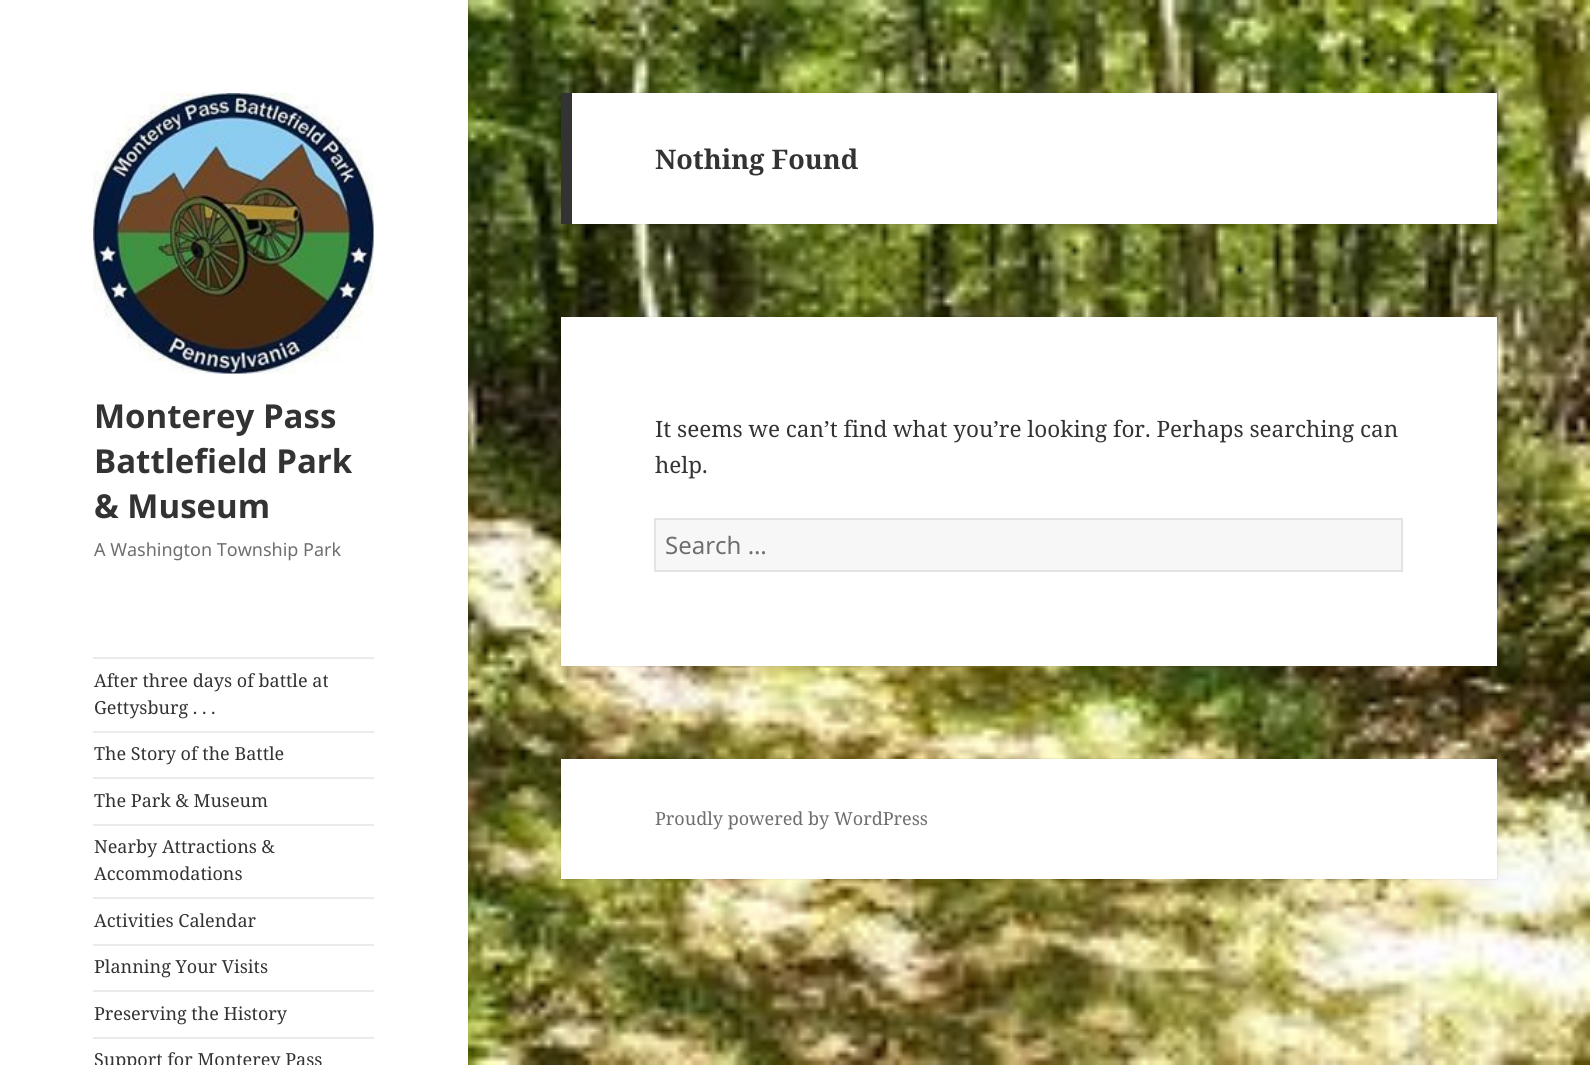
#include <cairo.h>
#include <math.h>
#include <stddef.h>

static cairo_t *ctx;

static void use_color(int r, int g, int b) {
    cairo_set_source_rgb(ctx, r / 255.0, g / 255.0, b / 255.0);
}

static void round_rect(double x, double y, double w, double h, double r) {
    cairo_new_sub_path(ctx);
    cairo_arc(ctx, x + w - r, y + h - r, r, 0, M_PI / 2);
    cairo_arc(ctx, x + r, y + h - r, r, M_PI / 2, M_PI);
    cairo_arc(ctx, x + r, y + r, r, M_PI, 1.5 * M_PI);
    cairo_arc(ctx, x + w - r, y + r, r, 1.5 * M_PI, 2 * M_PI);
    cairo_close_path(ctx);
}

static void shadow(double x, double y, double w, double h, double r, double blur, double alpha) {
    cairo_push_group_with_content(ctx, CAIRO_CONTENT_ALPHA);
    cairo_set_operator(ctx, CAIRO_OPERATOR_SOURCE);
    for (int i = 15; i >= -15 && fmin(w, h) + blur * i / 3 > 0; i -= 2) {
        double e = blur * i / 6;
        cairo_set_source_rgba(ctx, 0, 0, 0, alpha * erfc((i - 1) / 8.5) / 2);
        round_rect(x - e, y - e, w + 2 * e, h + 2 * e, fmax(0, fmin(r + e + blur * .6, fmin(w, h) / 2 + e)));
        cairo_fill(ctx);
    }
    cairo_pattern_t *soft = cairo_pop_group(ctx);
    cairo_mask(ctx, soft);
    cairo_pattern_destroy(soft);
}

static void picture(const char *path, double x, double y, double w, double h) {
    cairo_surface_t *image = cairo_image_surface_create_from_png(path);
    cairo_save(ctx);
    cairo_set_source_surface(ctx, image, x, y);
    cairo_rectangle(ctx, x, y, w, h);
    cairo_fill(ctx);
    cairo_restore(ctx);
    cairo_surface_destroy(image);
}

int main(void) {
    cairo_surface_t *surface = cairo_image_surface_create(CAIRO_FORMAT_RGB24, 1590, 1065);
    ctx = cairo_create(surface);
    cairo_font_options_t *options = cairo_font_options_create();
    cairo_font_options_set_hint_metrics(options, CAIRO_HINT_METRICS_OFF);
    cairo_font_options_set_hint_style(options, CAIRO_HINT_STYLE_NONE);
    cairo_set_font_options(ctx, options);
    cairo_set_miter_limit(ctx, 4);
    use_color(255, 255, 255);
    cairo_paint(ctx);
    picture("img1.png", 468, 0, 1122, 1065);
    use_color(0, 0, 0);
    shadow(0, 0, 468, 1065, 0, 1, 0.15);
    use_color(255, 255, 255);
    cairo_rectangle(ctx, 0, 0, 468, 1065);
    cairo_fill(ctx);
    use_color(0, 0, 0);
    shadow(561, 93, 936, 131, 0, 1, 0.15);
    use_color(255, 255, 255);
    cairo_rectangle(ctx, 572, 93, 925, 131);
    cairo_fill(ctx);
    use_color(51, 51, 51);
    cairo_rectangle(ctx, 561, 93, 11, 131);
    cairo_fill(ctx);
    cairo_select_font_face(ctx, "Noto Serif", CAIRO_FONT_SLANT_NORMAL, CAIRO_FONT_WEIGHT_BOLD);
    cairo_set_font_size(ctx, 27);
    cairo_move_to(ctx, 655, 169);
    cairo_show_text(ctx, "Nothing Found");
    use_color(0, 0, 0);
    shadow(561, 317, 936, 349, 0, 1, 0.15);
    use_color(255, 255, 255);
    cairo_rectangle(ctx, 561, 317, 936, 349);
    cairo_fill(ctx);
    cairo_select_font_face(ctx, "Noto Serif", CAIRO_FONT_SLANT_NORMAL, CAIRO_FONT_WEIGHT_NORMAL);
    cairo_set_font_size(ctx, 22.5);
    use_color(51, 51, 51);
    cairo_move_to(ctx, 655, 437);
    cairo_show_text(ctx, "It seems we can’t find what you’re looking for. Perhaps searching can");
    cairo_move_to(ctx, 655, 473);
    cairo_show_text(ctx, "help.");
    use_color(247, 247, 247);
    cairo_rectangle(ctx, 655, 519, 747, 52);
    cairo_fill_preserve(ctx);
    use_color(227, 227, 227);
    cairo_stroke(ctx);
    cairo_select_font_face(ctx, "Noto Sans", CAIRO_FONT_SLANT_NORMAL, CAIRO_FONT_WEIGHT_NORMAL);
    cairo_set_font_size(ctx, 24);
    use_color(110, 110, 110);
    cairo_move_to(ctx, 665, 554);
    cairo_show_text(ctx, "Search …");
    picture("img2.png", 93, 93, 281, 281);
    cairo_select_font_face(ctx, "Noto Sans", CAIRO_FONT_SLANT_NORMAL, CAIRO_FONT_WEIGHT_BOLD);
    cairo_set_font_size(ctx, 33);
    use_color(51, 51, 51);
    cairo_move_to(ctx, 94, 428);
    cairo_show_text(ctx, "Monterey Pass");
    cairo_move_to(ctx, 94, 473);
    cairo_show_text(ctx, "Battlefield Park");
    cairo_move_to(ctx, 94, 518);
    cairo_show_text(ctx, "& Museum");
    cairo_select_font_face(ctx, "Noto Sans", CAIRO_FONT_SLANT_NORMAL, CAIRO_FONT_WEIGHT_NORMAL);
    cairo_set_font_size(ctx, 18);
    use_color(110, 110, 110);
    cairo_move_to(ctx, 94, 556);
    cairo_show_text(ctx, "A Washington Township Park");
    use_color(235, 235, 235);
    cairo_rectangle(ctx, 93, 657, 281, 2);
    cairo_fill(ctx);
    cairo_select_font_face(ctx, "Noto Serif", CAIRO_FONT_SLANT_NORMAL, CAIRO_FONT_WEIGHT_NORMAL);
    use_color(51, 51, 51);
    cairo_move_to(ctx, 94, 687);
    cairo_show_text(ctx, "After three days of battle at");
    cairo_move_to(ctx, 94, 714);
    cairo_show_text(ctx, "Gettysburg . . .");
    use_color(235, 235, 235);
    cairo_rectangle(ctx, 93, 731, 281, 2);
    cairo_fill(ctx);
    use_color(51, 51, 51);
    cairo_move_to(ctx, 94, 760);
    cairo_show_text(ctx, "The Story of the Battle");
    use_color(235, 235, 235);
    cairo_rectangle(ctx, 93, 777, 281, 2);
    cairo_fill(ctx);
    use_color(51, 51, 51);
    cairo_move_to(ctx, 94, 807);
    cairo_show_text(ctx, "The Park & Museum");
    use_color(235, 235, 235);
    cairo_rectangle(ctx, 93, 824, 281, 2);
    cairo_fill(ctx);
    use_color(51, 51, 51);
    cairo_move_to(ctx, 94, 853);
    cairo_show_text(ctx, "Nearby Attractions &");
    cairo_move_to(ctx, 94, 880);
    cairo_show_text(ctx, "Accommodations");
    use_color(235, 235, 235);
    cairo_rectangle(ctx, 93, 897, 281, 2);
    cairo_fill(ctx);
    use_color(51, 51, 51);
    cairo_move_to(ctx, 94, 927);
    cairo_show_text(ctx, "Activities Calendar");
    use_color(235, 235, 235);
    cairo_rectangle(ctx, 93, 944, 281, 2);
    cairo_fill(ctx);
    use_color(51, 51, 51);
    cairo_move_to(ctx, 94, 973);
    cairo_show_text(ctx, "Planning Your Visits");
    use_color(235, 235, 235);
    cairo_rectangle(ctx, 93, 990, 281, 2);
    cairo_fill(ctx);
    use_color(51, 51, 51);
    cairo_move_to(ctx, 94, 1020);
    cairo_show_text(ctx, "Preserving the History");
    use_color(235, 235, 235);
    cairo_rectangle(ctx, 93, 1037, 281, 2);
    cairo_fill(ctx);
    use_color(51, 51, 51);
    cairo_move_to(ctx, 94, 1066);
    cairo_show_text(ctx, "Support for Monterey Pass");
    use_color(0, 0, 0);
    shadow(561, 759, 936, 120, 0, 1, 0.15);
    use_color(255, 255, 255);
    cairo_rectangle(ctx, 561, 759, 936, 120);
    cairo_fill(ctx);
    use_color(110, 110, 110);
    cairo_move_to(ctx, 655, 825);
    cairo_show_text(ctx, "Proudly powered by WordPress");
    cairo_surface_write_to_png(surface, "result.png");
    cairo_font_options_destroy(options);
    cairo_destroy(ctx);
    cairo_surface_destroy(surface);
    return 0;
}
